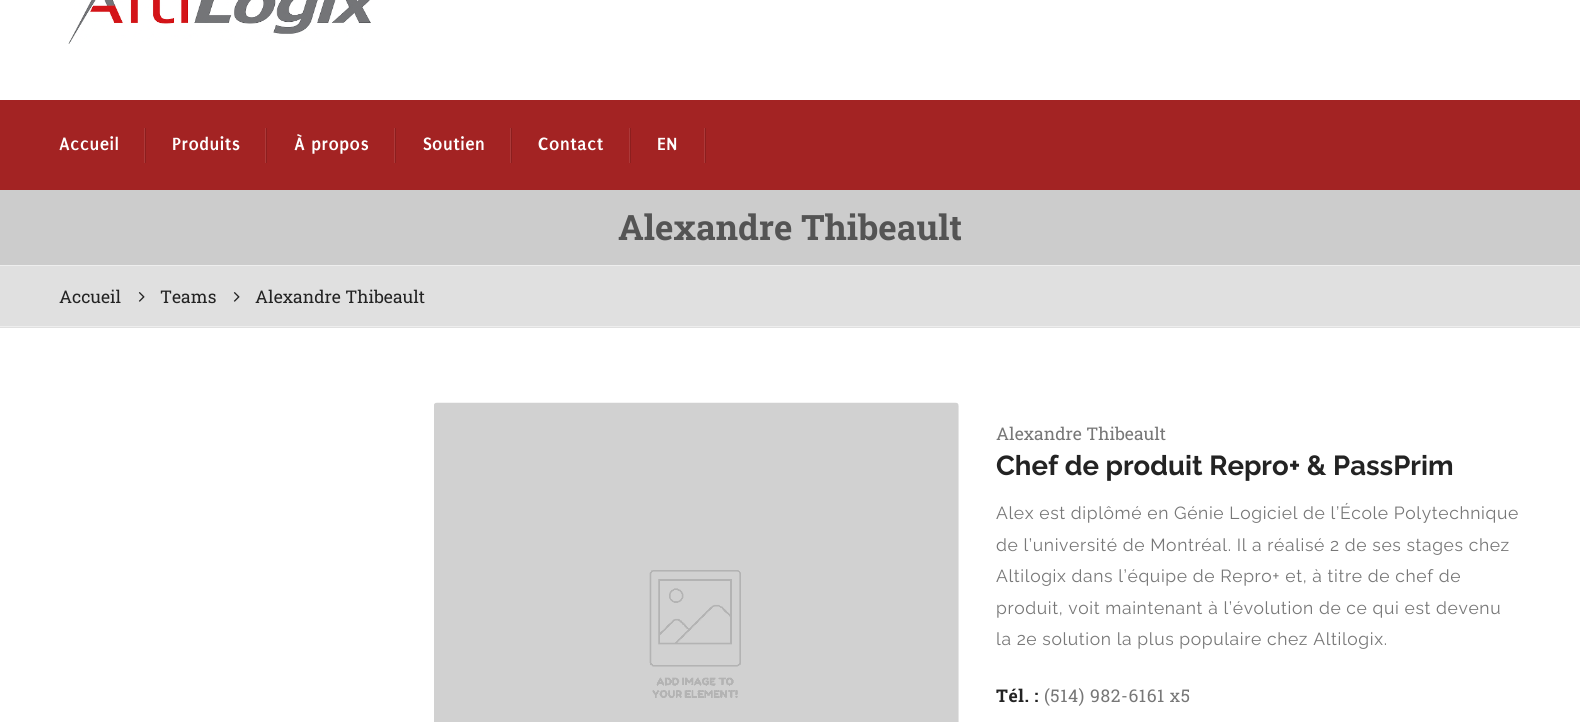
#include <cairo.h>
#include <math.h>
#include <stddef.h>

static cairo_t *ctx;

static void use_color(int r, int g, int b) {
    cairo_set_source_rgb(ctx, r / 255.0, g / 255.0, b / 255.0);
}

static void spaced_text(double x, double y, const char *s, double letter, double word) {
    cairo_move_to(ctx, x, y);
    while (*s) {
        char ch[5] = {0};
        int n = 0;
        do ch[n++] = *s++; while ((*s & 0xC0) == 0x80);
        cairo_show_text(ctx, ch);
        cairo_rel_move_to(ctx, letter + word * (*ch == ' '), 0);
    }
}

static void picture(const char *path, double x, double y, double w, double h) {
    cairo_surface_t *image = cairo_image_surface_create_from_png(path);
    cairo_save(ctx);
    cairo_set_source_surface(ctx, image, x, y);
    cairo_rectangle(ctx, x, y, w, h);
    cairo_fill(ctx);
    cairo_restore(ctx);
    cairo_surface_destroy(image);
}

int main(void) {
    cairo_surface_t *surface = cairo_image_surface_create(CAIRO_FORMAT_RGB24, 1580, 722);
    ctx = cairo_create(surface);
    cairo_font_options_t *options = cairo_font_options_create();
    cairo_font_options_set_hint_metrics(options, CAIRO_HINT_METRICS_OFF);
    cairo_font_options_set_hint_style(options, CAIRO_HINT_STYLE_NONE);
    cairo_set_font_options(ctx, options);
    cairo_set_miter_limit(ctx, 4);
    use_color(255, 255, 255);
    cairo_paint(ctx);
    picture("img1.png", 68, 0, 303, 44);
    use_color(163, 35, 35);
    cairo_rectangle(ctx, 0, 100, 1580, 90);
    cairo_fill(ctx);
    cairo_select_font_face(ctx, "Puritan", CAIRO_FONT_SLANT_NORMAL, CAIRO_FONT_WEIGHT_BOLD);
    cairo_set_font_size(ctx, 19);
    use_color(255, 255, 255);
    spaced_text(59, 150, "Accueil", 0.5, 0);
    use_color(140, 30, 30);
    cairo_rectangle(ctx, 145, 128, 1, 35);
    cairo_fill(ctx);
    use_color(172, 57, 57);
    cairo_rectangle(ctx, 144, 128, 1, 35);
    cairo_fill(ctx);
    use_color(255, 255, 255);
    spaced_text(172, 150, "Produits", 0.5, 0);
    use_color(140, 30, 30);
    cairo_new_path(ctx);
    cairo_move_to(ctx, 266, 162.5);
    cairo_line_to(ctx, 266, 163);
    cairo_line_to(ctx, 267, 163);
    cairo_line_to(ctx, 267, 128);
    cairo_line_to(ctx, 266, 128);
    cairo_close_path(ctx);
    cairo_fill(ctx);
    use_color(172, 57, 57);
    cairo_rectangle(ctx, 265, 128, 1, 35);
    cairo_fill(ctx);
    use_color(255, 255, 255);
    spaced_text(294, 150, "À propos", 0.5, 0);
    use_color(140, 30, 30);
    cairo_rectangle(ctx, 395, 128, 1, 35);
    cairo_fill(ctx);
    use_color(172, 57, 57);
    cairo_rectangle(ctx, 394, 128, 1, 35);
    cairo_fill(ctx);
    use_color(255, 255, 255);
    spaced_text(423, 150, "Soutien", 0.5, 0);
    use_color(140, 30, 30);
    cairo_new_path(ctx);
    cairo_move_to(ctx, 511, 162.5);
    cairo_line_to(ctx, 511, 163);
    cairo_line_to(ctx, 512, 163);
    cairo_line_to(ctx, 512, 128);
    cairo_line_to(ctx, 511, 128);
    cairo_close_path(ctx);
    cairo_fill(ctx);
    use_color(172, 57, 57);
    cairo_rectangle(ctx, 510, 128, 1, 35);
    cairo_fill(ctx);
    use_color(255, 255, 255);
    spaced_text(538, 150, "Contact", 0.5, 0);
    use_color(140, 30, 30);
    cairo_rectangle(ctx, 630, 128, 1, 35);
    cairo_fill(ctx);
    use_color(172, 57, 57);
    cairo_rectangle(ctx, 629, 128, 1, 35);
    cairo_fill(ctx);
    use_color(255, 255, 255);
    spaced_text(657, 150, "EN", 0.5, 0);
    use_color(140, 30, 30);
    cairo_rectangle(ctx, 705, 128, 1, 35);
    cairo_fill(ctx);
    use_color(172, 57, 57);
    cairo_rectangle(ctx, 704, 128, 1, 35);
    cairo_fill(ctx);
    use_color(204, 204, 204);
    cairo_rectangle(ctx, 0, 190, 1580, 75);
    cairo_fill(ctx);
    cairo_select_font_face(ctx, "Roboto Slab", CAIRO_FONT_SLANT_NORMAL, CAIRO_FONT_WEIGHT_BOLD);
    cairo_set_font_size(ctx, 35);
    use_color(84, 84, 84);
    cairo_move_to(ctx, 618, 240);
    cairo_show_text(ctx, "Alexandre Thibeault");
    use_color(224, 224, 224);
    cairo_rectangle(ctx, 0, 266, 1580, 62);
    cairo_fill(ctx);
    use_color(238, 238, 238);
    cairo_rectangle(ctx, 0, 265, 1580, 1);
    cairo_fill(ctx);
    cairo_rectangle(ctx, 0, 326, 1580, 1);
    cairo_fill(ctx);
    cairo_select_font_face(ctx, "Roboto Slab", CAIRO_FONT_SLANT_NORMAL, CAIRO_FONT_WEIGHT_NORMAL);
    cairo_set_font_size(ctx, 17.5);
    use_color(35, 35, 35);
    cairo_move_to(ctx, 59, 303);
    cairo_show_text(ctx, "Accueil");
    picture("img2.png", 138, 292, 7, 10);
    cairo_move_to(ctx, 160, 303);
    cairo_show_text(ctx, "Teams");
    picture("img2.png", 233, 292, 7, 10);
    cairo_move_to(ctx, 255, 303);
    cairo_show_text(ctx, "Alexandre Thibeault");
    picture("img3.png", 434, 402, 525, 320);
    use_color(119, 119, 119);
    cairo_move_to(ctx, 996, 440);
    cairo_show_text(ctx, "Alexandre Thibeault");
    cairo_select_font_face(ctx, "Raleway", CAIRO_FONT_SLANT_NORMAL, CAIRO_FONT_WEIGHT_BOLD);
    cairo_set_font_size(ctx, 27.5);
    use_color(35, 35, 35);
    cairo_move_to(ctx, 996, 475);
    cairo_show_text(ctx, "Chef de produit Repro+ & PassPrim");
    cairo_select_font_face(ctx, "Raleway", CAIRO_FONT_SLANT_NORMAL, CAIRO_FONT_WEIGHT_NORMAL);
    cairo_set_font_size(ctx, 17.5);
    use_color(119, 119, 119);
    spaced_text(996, 519, "Alex est diplômé en Génie Logiciel de l’École Polytechnique", 0.62, 0);
    spaced_text(996, 551, "de l’université de Montréal. Il a réalisé 2 de ses stages chez", 0.62, 0);
    spaced_text(996, 582, "Altilogix dans l’équipe de Repro+ et, à titre de chef de", 0.62, 0);
    spaced_text(996, 614, "produit, voit maintenant à l’évolution de ce qui est devenu", 0.62, 0);
    spaced_text(996, 645, "la 2e solution la plus populaire chez Altilogix.", 0.62, 0);
    cairo_select_font_face(ctx, "Roboto Slab", CAIRO_FONT_SLANT_NORMAL, CAIRO_FONT_WEIGHT_BOLD);
    use_color(35, 35, 35);
    spaced_text(996, 702, "Tél. :", 0.62, 0);
    cairo_select_font_face(ctx, "Roboto Slab", CAIRO_FONT_SLANT_NORMAL, CAIRO_FONT_WEIGHT_NORMAL);
    use_color(119, 119, 119);
    spaced_text(1044, 702, "(514) 982-6161 x5", 0.62, 0);
    cairo_surface_write_to_png(surface, "result.png");
    cairo_font_options_destroy(options);
    cairo_destroy(ctx);
    cairo_surface_destroy(surface);
    return 0;
}
